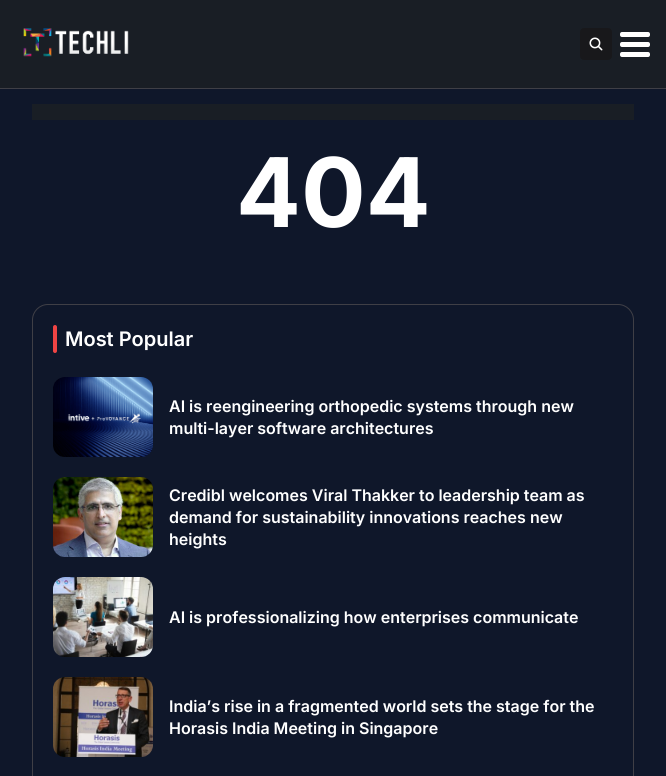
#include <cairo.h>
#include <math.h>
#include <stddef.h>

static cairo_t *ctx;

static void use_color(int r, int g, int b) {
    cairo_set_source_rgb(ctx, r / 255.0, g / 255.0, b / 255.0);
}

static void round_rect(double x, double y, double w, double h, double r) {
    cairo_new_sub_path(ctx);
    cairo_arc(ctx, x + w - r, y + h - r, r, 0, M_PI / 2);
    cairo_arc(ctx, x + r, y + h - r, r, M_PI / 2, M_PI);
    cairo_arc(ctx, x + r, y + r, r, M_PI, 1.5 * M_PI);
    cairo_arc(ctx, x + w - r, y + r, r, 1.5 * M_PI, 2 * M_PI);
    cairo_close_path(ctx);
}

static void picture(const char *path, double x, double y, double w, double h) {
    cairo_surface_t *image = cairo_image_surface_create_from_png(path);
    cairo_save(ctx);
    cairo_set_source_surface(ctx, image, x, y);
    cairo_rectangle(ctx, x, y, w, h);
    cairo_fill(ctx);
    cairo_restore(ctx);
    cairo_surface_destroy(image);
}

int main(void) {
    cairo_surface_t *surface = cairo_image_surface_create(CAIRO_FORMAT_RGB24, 666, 776);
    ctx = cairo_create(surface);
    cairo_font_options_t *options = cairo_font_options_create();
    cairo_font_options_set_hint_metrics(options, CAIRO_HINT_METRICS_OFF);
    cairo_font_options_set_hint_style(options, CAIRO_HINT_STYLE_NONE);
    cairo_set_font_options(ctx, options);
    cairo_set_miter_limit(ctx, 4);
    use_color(15, 23, 42);
    cairo_paint(ctx);
    use_color(25, 30, 37);
    cairo_rectangle(ctx, 0, 0, 666, 88);
    cairo_fill(ctx);
    use_color(63, 63, 70);
    cairo_rectangle(ctx, 0, 88, 666, 1);
    cairo_fill(ctx);
    picture("img1.png", 23, 28, 106, 29);
    use_color(24, 24, 27);
    round_rect(580, 28, 32, 32, 4);
    cairo_fill(ctx);
    picture("img2.png", 589, 37, 14, 14);
    use_color(255, 255, 255);
    round_rect(620, 32, 30, 5, 2);
    cairo_fill(ctx);
    round_rect(620, 42, 30, 5, 2);
    cairo_fill(ctx);
    round_rect(620, 52, 30, 5, 2);
    cairo_fill(ctx);
    use_color(25, 30, 37);
    cairo_rectangle(ctx, 32, 104, 602, 16);
    cairo_fill(ctx);
    cairo_select_font_face(ctx, "Inter", CAIRO_FONT_SLANT_NORMAL, CAIRO_FONT_WEIGHT_BOLD);
    cairo_set_font_size(ctx, 96);
    use_color(255, 255, 255);
    cairo_move_to(ctx, 236, 227);
    cairo_show_text(ctx, "404");
    round_rect(32.5, 304.5, 601, 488, 15.5);
    use_color(63, 63, 70);
    cairo_set_line_width(ctx, 1);
    cairo_stroke(ctx);
    use_color(239, 68, 68);
    round_rect(53, 325, 4, 28, 2);
    cairo_fill(ctx);
    cairo_select_font_face(ctx, "Inter SemiBold", CAIRO_FONT_SLANT_NORMAL, CAIRO_FONT_WEIGHT_NORMAL);
    cairo_set_font_size(ctx, 20);
    use_color(255, 255, 255);
    cairo_move_to(ctx, 65, 346);
    cairo_show_text(ctx, "Most Popular");
    picture("img3.png", 53, 377, 100, 80);
    cairo_set_font_size(ctx, 16);
    cairo_move_to(ctx, 169, 412);
    cairo_show_text(ctx, "AI is reengineering orthopedic systems through new");
    cairo_move_to(ctx, 169, 434);
    cairo_show_text(ctx, "multi-layer software architectures");
    picture("img4.png", 53, 477, 100, 80);
    cairo_move_to(ctx, 169, 501);
    cairo_show_text(ctx, "Credibl welcomes Viral Thakker to leadership team as");
    cairo_move_to(ctx, 169, 523);
    cairo_show_text(ctx, "demand for sustainability innovations reaches new");
    cairo_move_to(ctx, 169, 545);
    cairo_show_text(ctx, "heights");
    picture("img5.png", 53, 577, 100, 80);
    cairo_move_to(ctx, 169, 623);
    cairo_show_text(ctx, "AI is professionalizing how enterprises communicate");
    picture("img6.png", 53, 677, 100, 80);
    cairo_move_to(ctx, 169, 712);
    cairo_show_text(ctx, "India’s rise in a fragmented world sets the stage for the");
    cairo_move_to(ctx, 169, 734);
    cairo_show_text(ctx, "Horasis India Meeting in Singapore");
    cairo_surface_write_to_png(surface, "result.png");
    cairo_font_options_destroy(options);
    cairo_destroy(ctx);
    cairo_surface_destroy(surface);
    return 0;
}
